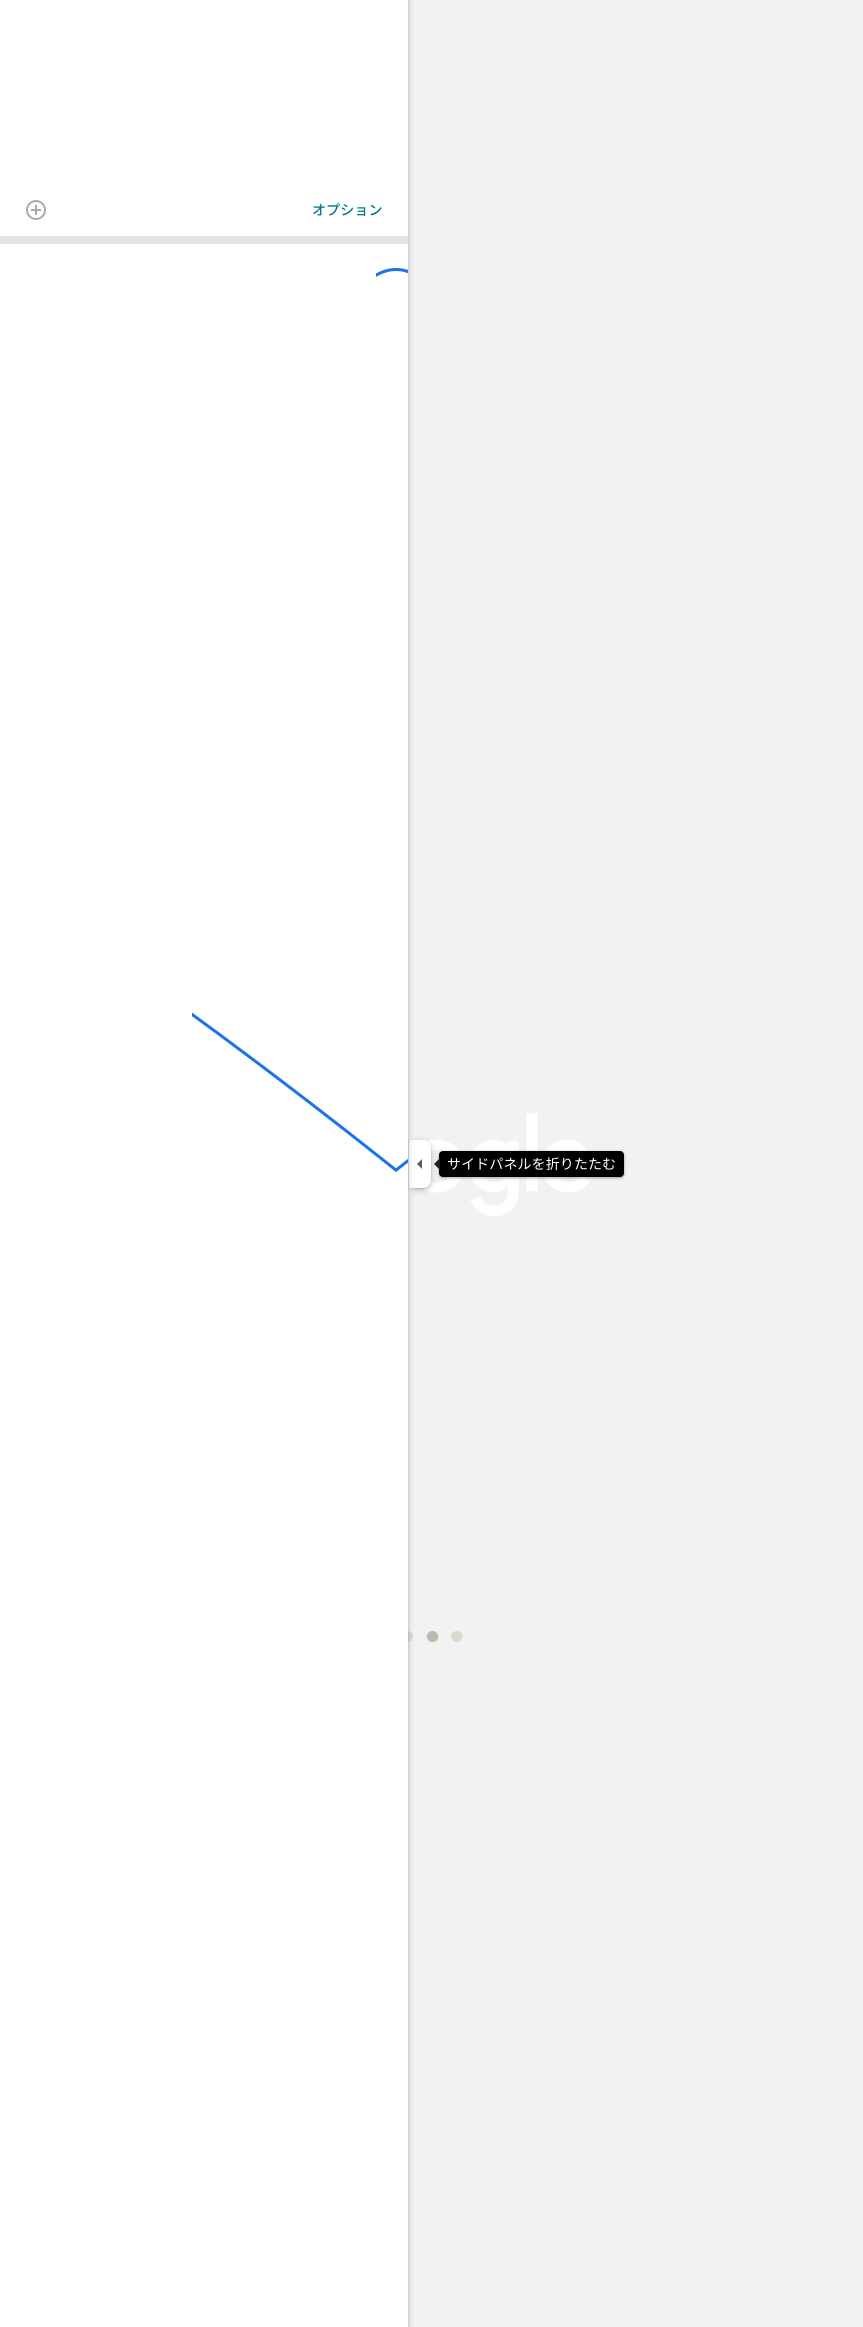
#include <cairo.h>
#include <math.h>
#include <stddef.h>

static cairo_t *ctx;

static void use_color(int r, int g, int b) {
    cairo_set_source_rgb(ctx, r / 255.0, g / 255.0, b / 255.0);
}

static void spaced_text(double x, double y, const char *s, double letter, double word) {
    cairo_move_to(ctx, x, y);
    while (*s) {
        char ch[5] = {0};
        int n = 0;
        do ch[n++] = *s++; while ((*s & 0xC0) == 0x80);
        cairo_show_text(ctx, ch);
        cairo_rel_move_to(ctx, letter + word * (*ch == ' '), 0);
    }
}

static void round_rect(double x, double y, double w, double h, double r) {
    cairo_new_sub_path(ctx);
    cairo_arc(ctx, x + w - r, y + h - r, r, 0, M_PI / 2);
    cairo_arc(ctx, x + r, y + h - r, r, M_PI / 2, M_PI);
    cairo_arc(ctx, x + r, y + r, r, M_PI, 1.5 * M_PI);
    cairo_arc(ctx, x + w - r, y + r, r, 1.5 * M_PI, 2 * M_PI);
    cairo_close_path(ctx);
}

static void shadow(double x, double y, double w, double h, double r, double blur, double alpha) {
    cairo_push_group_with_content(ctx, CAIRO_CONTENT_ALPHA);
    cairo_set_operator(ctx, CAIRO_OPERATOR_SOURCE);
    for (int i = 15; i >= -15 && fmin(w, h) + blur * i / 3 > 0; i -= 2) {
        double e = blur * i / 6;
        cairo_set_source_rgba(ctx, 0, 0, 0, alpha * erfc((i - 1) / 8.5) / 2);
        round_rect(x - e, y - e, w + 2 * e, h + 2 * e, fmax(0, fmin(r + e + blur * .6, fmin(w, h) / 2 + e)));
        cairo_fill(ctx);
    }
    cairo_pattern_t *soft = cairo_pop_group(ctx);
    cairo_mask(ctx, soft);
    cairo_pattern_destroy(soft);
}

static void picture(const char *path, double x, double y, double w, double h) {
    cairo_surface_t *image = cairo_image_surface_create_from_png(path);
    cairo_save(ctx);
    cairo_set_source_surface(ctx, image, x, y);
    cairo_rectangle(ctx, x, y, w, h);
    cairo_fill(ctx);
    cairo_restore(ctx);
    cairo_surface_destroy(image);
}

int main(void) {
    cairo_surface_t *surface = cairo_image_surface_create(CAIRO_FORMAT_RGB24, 863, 2327);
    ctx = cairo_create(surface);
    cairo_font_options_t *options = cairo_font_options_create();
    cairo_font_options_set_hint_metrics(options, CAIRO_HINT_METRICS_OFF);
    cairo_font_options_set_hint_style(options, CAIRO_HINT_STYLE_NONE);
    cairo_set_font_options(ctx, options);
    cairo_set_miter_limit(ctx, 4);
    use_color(242, 242, 242);
    cairo_paint(ctx);
    picture("img2.png", 422, 1113, 169, 103);
    use_color(60, 64, 67);
    shadow(406, 1140, 27, 52, 10, 3, 0.15);
    shadow(408, 1141, 23, 48, 8, 1, 0.3);
    use_color(255, 255, 255);
    cairo_new_path(ctx);
    cairo_move_to(ctx, 408, 1140);
    cairo_line_to(ctx, 423, 1140);
    cairo_curve_to(ctx, 427.5, 1140, 431, 1143.5, 431, 1148);
    cairo_line_to(ctx, 431, 1180);
    cairo_curve_to(ctx, 431, 1184.5, 427.5, 1188, 423, 1188);
    cairo_line_to(ctx, 408, 1188);
    cairo_close_path(ctx);
    cairo_fill(ctx);
    use_color(227, 227, 227);
    cairo_rectangle(ctx, 408, 1140, 1, 48);
    cairo_fill(ctx);
    use_color(94, 94, 94);
    cairo_new_path(ctx);
    cairo_move_to(ctx, 422, 1169);
    cairo_line_to(ctx, 417, 1164);
    cairo_line_to(ctx, 422, 1159);
    cairo_close_path(ctx);
    cairo_fill(ctx);
    picture("img3.png", 408, 1631, 55, 11);
    use_color(60, 64, 67);
    shadow(-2, 0, 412, 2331, 0, 3, 0.15);
    shadow(0, 1, 408, 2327, 0, 1, 0.3);
    use_color(255, 255, 255);
    cairo_rectangle(ctx, 0, 0, 408, 2327);
    cairo_fill(ctx);
    use_color(227, 227, 227);
    cairo_rectangle(ctx, 0, 236, 408, 8);
    cairo_fill(ctx);
    picture("img1.png", 26, 200, 20, 20);
    cairo_select_font_face(ctx, "Noto Sans JP Medium", CAIRO_FONT_SLANT_NORMAL, CAIRO_FONT_WEIGHT_NORMAL);
    cairo_set_font_size(ctx, 14);
    use_color(0, 123, 139);
    spaced_text(312, 215, "オプション", 0.1, 0);
    cairo_save(ctx);
    cairo_rectangle(ctx, 376, 268, 32, 2059);
    cairo_clip(ctx);
    cairo_new_path(ctx);
    cairo_move_to(ctx, 253, 2253);
    cairo_curve_to(ctx, 215, 2035, 193.5, 1739.5, 193.5, 1431.5);
    cairo_curve_to(ctx, 193.5, 1123.5, 215, 828, 253, 610);
    cairo_curve_to(ctx, 291, 392, 342.5, 269.5, 396, 269.5);
    cairo_curve_to(ctx, 449.5, 269.5, 501, 392, 539, 610);
    cairo_curve_to(ctx, 577, 828, 598.5, 1123.5, 598.5, 1431.5);
    cairo_curve_to(ctx, 598.5, 1739.5, 577, 2035, 539, 2253);
    use_color(26, 115, 232);
    cairo_set_line_width(ctx, 3);
    cairo_stroke(ctx);
    cairo_restore(ctx);
    cairo_save(ctx);
    cairo_rectangle(ctx, 192, 268, 204, 2059);
    cairo_clip(ctx);
    cairo_new_path(ctx);
    cairo_move_to(ctx, -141.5, 793.5);
    cairo_curve_to(ctx, 50, 904.5, 290, 1078.5, 526, 1276.5);
    cairo_curve_to(ctx, 762, 1474.5, 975, 1681, 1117.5, 1850);
    cairo_curve_to(ctx, 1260, 2019, 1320.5, 2137.5, 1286, 2178.5);
    cairo_curve_to(ctx, 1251.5, 2219.5, 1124.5, 2180.5, 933.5, 2069.5);
    use_color(26, 115, 232);
    cairo_set_line_width(ctx, 3);
    cairo_stroke(ctx);
    cairo_restore(ctx);
    cairo_save(ctx);
    cairo_rectangle(ctx, 396, 268, 12, 2059);
    cairo_clip(ctx);
    cairo_new_path(ctx);
    cairo_move_to(ctx, -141.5, 2069.5);
    cairo_curve_to(ctx, -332.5, 2180.5, -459.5, 2219.5, -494, 2178.5);
    cairo_curve_to(ctx, -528.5, 2137.5, -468, 2019, -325.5, 1850);
    cairo_curve_to(ctx, -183, 1681, 30, 1474.5, 266, 1276.5);
    cairo_curve_to(ctx, 502, 1078.5, 742, 904.5, 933.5, 793.5);
    use_color(26, 115, 232);
    cairo_set_line_width(ctx, 3);
    cairo_stroke(ctx);
    cairo_restore(ctx);
    use_color(60, 64, 67);
    shadow(438, 1151, 187, 28, 5, 1.5, 0.15);
    shadow(439, 1152, 185, 26, 4, 1, 0.3);
    use_color(0, 0, 0);
    round_rect(439, 1151, 185, 26, 4);
    cairo_fill(ctx);
    use_color(31, 31, 31);
    cairo_new_path(ctx);
    cairo_move_to(ctx, 440, 1158);
    cairo_line_to(ctx, 440, 1170);
    cairo_line_to(ctx, 434, 1164);
    cairo_close_path(ctx);
    cairo_fill(ctx);
    cairo_select_font_face(ctx, "Noto Sans JP", CAIRO_FONT_SLANT_NORMAL, CAIRO_FONT_WEIGHT_NORMAL);
    use_color(255, 255, 255);
    spaced_text(447, 1169, "サイドパネルを折りたたむ", 0.1, 0);
    cairo_surface_write_to_png(surface, "result.png");
    cairo_font_options_destroy(options);
    cairo_destroy(ctx);
    cairo_surface_destroy(surface);
    return 0;
}
